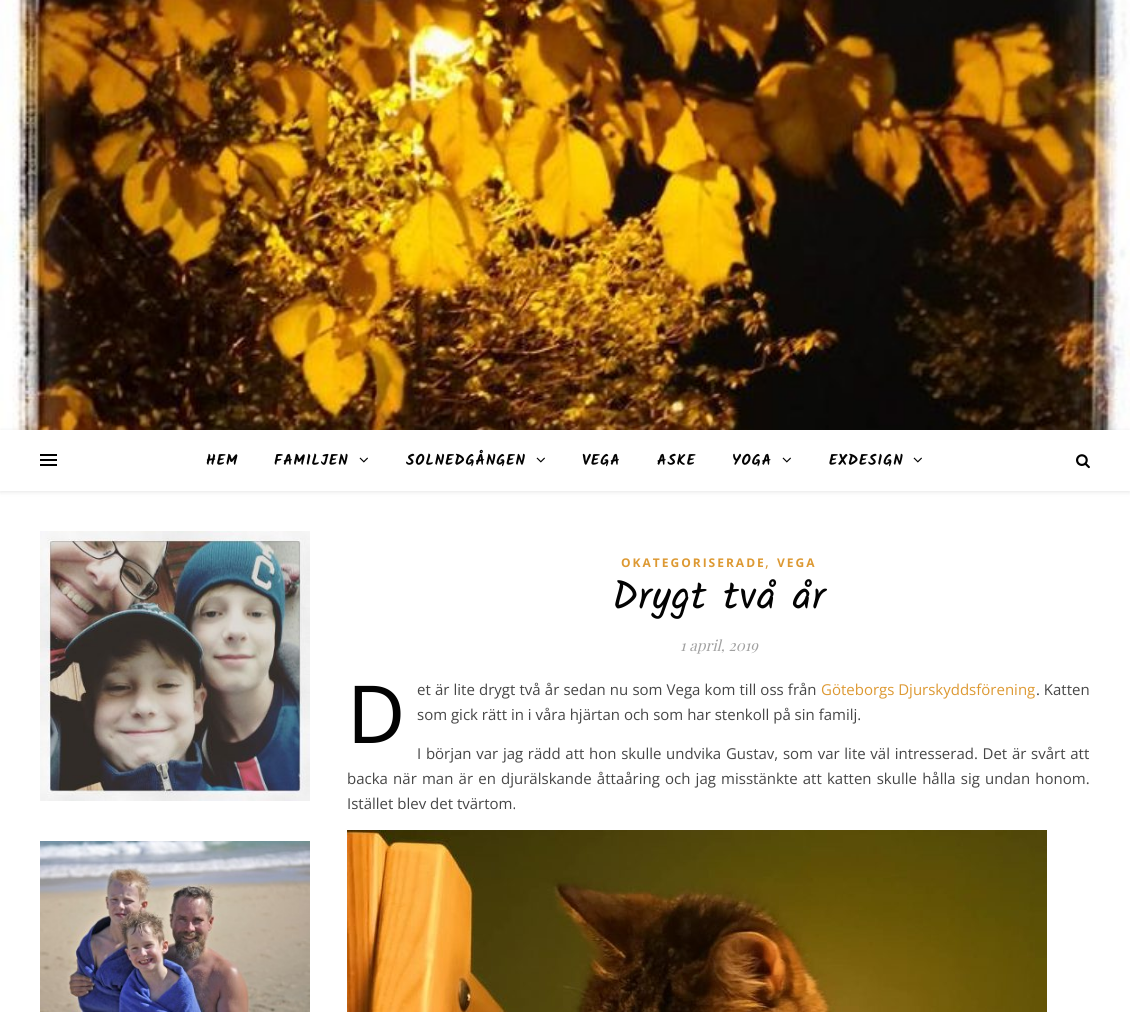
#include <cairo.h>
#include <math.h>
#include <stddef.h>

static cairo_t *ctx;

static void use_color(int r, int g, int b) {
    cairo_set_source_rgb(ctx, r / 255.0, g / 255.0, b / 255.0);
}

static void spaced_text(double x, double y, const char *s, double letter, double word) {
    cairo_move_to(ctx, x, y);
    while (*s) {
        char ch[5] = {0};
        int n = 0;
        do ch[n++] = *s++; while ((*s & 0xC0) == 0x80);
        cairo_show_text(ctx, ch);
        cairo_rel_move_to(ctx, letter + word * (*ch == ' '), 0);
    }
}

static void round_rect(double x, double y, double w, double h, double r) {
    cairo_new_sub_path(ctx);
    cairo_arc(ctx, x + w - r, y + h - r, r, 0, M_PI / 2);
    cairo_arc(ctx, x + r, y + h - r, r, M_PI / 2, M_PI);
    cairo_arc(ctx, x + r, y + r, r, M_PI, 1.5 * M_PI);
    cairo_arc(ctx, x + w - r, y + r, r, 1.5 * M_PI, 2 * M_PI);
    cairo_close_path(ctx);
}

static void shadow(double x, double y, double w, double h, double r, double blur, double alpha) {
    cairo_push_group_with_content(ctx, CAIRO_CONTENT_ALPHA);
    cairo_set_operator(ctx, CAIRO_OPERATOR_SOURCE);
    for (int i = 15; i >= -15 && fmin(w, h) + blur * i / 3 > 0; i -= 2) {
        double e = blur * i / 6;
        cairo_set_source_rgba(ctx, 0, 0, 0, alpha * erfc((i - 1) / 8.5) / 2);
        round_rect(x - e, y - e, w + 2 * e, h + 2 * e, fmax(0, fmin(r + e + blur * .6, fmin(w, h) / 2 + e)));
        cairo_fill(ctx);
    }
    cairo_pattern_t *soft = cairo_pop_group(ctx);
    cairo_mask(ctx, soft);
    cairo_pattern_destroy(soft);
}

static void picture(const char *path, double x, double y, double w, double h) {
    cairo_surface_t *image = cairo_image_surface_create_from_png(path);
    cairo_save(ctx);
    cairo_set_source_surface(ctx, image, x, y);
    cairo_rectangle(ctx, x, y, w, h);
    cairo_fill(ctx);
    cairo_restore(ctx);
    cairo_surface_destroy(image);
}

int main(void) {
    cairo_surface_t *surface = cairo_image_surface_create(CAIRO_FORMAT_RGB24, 1130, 1012);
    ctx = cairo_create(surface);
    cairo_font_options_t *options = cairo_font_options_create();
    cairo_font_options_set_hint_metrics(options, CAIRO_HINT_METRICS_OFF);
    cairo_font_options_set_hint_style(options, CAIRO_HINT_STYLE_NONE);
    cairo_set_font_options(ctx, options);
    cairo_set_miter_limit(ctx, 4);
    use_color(255, 255, 255);
    cairo_paint(ctx);
    picture("img1.png", 0, 0, 1130, 430);
    cairo_save(ctx);
    cairo_set_fill_rule(ctx, CAIRO_FILL_RULE_EVEN_ODD);
    cairo_new_path(ctx);
    cairo_move_to(ctx, 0, 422);
    cairo_line_to(ctx, 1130, 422);
    cairo_line_to(ctx, 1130, 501);
    cairo_line_to(ctx, 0, 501);
    cairo_close_path(ctx);
    cairo_move_to(ctx, 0, 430);
    cairo_line_to(ctx, 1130, 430);
    cairo_line_to(ctx, 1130, 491);
    cairo_line_to(ctx, 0, 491);
    cairo_close_path(ctx);
    cairo_clip(ctx);
    use_color(0, 0, 0);
    shadow(0, 431, 1130, 61, 0, 2.5, 0.1);
    cairo_restore(ctx);
    use_color(0, 0, 0);
    cairo_rectangle(ctx, 40, 454, 17, 2);
    cairo_fill(ctx);
    cairo_rectangle(ctx, 40, 459, 17, 2);
    cairo_fill(ctx);
    cairo_rectangle(ctx, 40, 464, 17, 2);
    cairo_fill(ctx);
    cairo_select_font_face(ctx, "Kalam", CAIRO_FONT_SLANT_NORMAL, CAIRO_FONT_WEIGHT_BOLD);
    cairo_set_font_size(ctx, 15);
    use_color(3, 3, 3);
    spaced_text(206, 465, "HEM", 1, 0);
    spaced_text(274, 465, "FAMILJEN", 1, 0);
    picture("img2.png", 359, 457, 9, 6);
    spaced_text(406, 465, "SOLNEDGÅNGEN", 1, 0);
    picture("img2.png", 536, 457, 9, 6);
    spaced_text(582, 465, "VEGA", 1, 0);
    spaced_text(657, 465, "ASKE", 1, 0);
    spaced_text(732, 465, "YOGA", 1, 0);
    picture("img2.png", 782, 457, 9, 6);
    spaced_text(829, 465, "EXDESIGN", 1, 0);
    picture("img2.png", 913, 457, 9, 6);
    picture("img3.png", 1076, 454, 14, 15);
    picture("img4.png", 40, 531, 270, 270);
    picture("img5.png", 40, 841, 270, 171);
    cairo_select_font_face(ctx, "Open Sans", CAIRO_FONT_SLANT_NORMAL, CAIRO_FONT_WEIGHT_BOLD);
    cairo_set_font_size(ctx, 12);
    use_color(221, 153, 51);
    spaced_text(621, 567, "OKATEGORISERADE", 2, 0);
    cairo_select_font_face(ctx, "Open Sans", CAIRO_FONT_SLANT_NORMAL, CAIRO_FONT_WEIGHT_NORMAL);
    cairo_set_font_size(ctx, 15);
    cairo_move_to(ctx, 765, 567);
    cairo_show_text(ctx, ",");
    cairo_select_font_face(ctx, "Open Sans", CAIRO_FONT_SLANT_NORMAL, CAIRO_FONT_WEIGHT_BOLD);
    cairo_set_font_size(ctx, 12);
    spaced_text(777, 567, "VEGA", 2, 0);
    cairo_select_font_face(ctx, "Kalam", CAIRO_FONT_SLANT_NORMAL, CAIRO_FONT_WEIGHT_NORMAL);
    cairo_set_font_size(ctx, 40);
    use_color(3, 3, 3);
    spaced_text(612, 609, "Drygt två år", 0.5, 0);
    cairo_select_font_face(ctx, "Playfair Display", CAIRO_FONT_SLANT_ITALIC, CAIRO_FONT_WEIGHT_NORMAL);
    cairo_set_font_size(ctx, 15);
    use_color(161, 161, 161);
    cairo_move_to(ctx, 680, 651);
    cairo_show_text(ctx, "1 april, 2019");
    cairo_select_font_face(ctx, "Noto Sans", CAIRO_FONT_SLANT_NORMAL, CAIRO_FONT_WEIGHT_NORMAL);
    cairo_set_font_size(ctx, 80);
    use_color(3, 3, 3);
    cairo_move_to(ctx, 347, 743);
    cairo_show_text(ctx, "D");
    cairo_select_font_face(ctx, "Open Sans", CAIRO_FONT_SLANT_NORMAL, CAIRO_FONT_WEIGHT_NORMAL);
    cairo_set_font_size(ctx, 15);
    use_color(70, 70, 70);
    spaced_text(417, 695, "et är lite drygt två år sedan nu som Vega kom till oss från", 0, 0.25);
    use_color(221, 153, 51);
    cairo_move_to(ctx, 821, 695);
    cairo_show_text(ctx, "Göteborgs Djurskyddsförening");
    use_color(70, 70, 70);
    cairo_move_to(ctx, 1036, 695);
    cairo_show_text(ctx, ". Katten");
    cairo_move_to(ctx, 417, 720);
    cairo_show_text(ctx, "som gick rätt in i våra hjärtan och som har stenkoll på sin familj.");
    spaced_text(417, 759, "I början var jag rädd att hon skulle undvika Gustav, som var lite väl intresserad. Det är svårt att", 0, 0.8);
    spaced_text(347, 784, "backa när man är en djurälskande åttaåring och jag misstänkte att katten skulle hålla sig undan honom.", 0, 1.3);
    cairo_move_to(ctx, 347, 809);
    cairo_show_text(ctx, "Istället blev det tvärtom.");
    picture("img6.png", 347, 830, 700, 182);
    cairo_surface_write_to_png(surface, "result.png");
    cairo_font_options_destroy(options);
    cairo_destroy(ctx);
    cairo_surface_destroy(surface);
    return 0;
}
